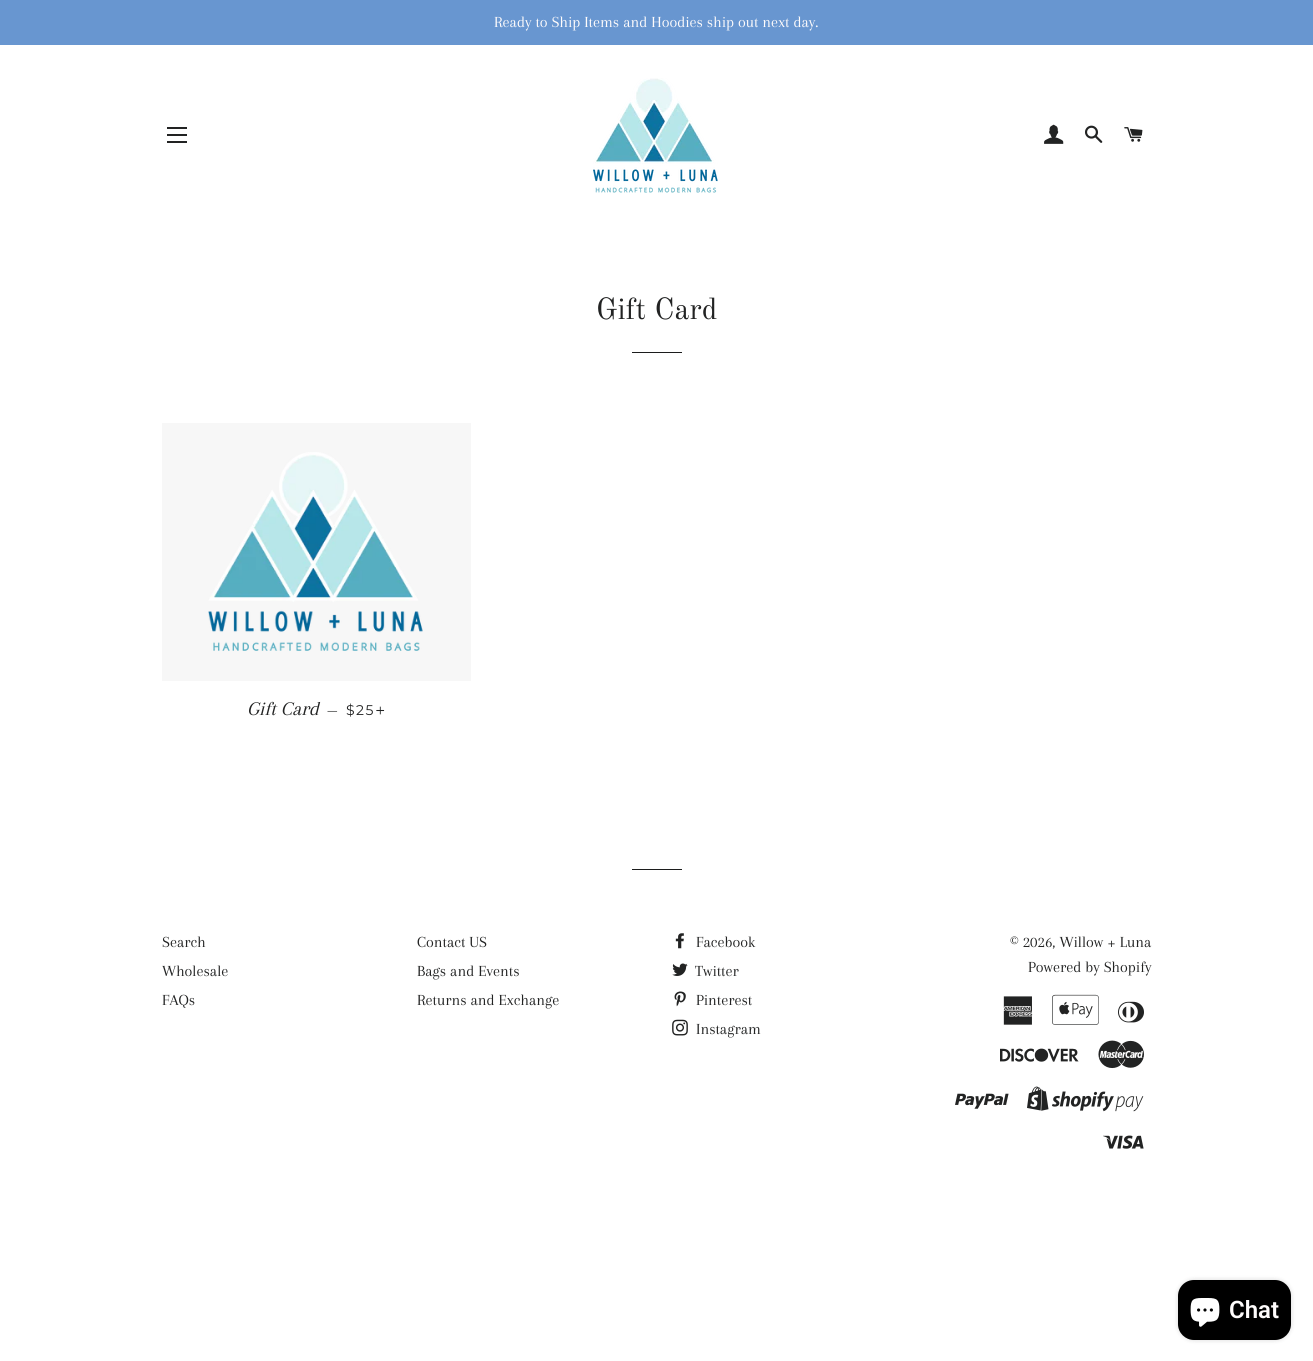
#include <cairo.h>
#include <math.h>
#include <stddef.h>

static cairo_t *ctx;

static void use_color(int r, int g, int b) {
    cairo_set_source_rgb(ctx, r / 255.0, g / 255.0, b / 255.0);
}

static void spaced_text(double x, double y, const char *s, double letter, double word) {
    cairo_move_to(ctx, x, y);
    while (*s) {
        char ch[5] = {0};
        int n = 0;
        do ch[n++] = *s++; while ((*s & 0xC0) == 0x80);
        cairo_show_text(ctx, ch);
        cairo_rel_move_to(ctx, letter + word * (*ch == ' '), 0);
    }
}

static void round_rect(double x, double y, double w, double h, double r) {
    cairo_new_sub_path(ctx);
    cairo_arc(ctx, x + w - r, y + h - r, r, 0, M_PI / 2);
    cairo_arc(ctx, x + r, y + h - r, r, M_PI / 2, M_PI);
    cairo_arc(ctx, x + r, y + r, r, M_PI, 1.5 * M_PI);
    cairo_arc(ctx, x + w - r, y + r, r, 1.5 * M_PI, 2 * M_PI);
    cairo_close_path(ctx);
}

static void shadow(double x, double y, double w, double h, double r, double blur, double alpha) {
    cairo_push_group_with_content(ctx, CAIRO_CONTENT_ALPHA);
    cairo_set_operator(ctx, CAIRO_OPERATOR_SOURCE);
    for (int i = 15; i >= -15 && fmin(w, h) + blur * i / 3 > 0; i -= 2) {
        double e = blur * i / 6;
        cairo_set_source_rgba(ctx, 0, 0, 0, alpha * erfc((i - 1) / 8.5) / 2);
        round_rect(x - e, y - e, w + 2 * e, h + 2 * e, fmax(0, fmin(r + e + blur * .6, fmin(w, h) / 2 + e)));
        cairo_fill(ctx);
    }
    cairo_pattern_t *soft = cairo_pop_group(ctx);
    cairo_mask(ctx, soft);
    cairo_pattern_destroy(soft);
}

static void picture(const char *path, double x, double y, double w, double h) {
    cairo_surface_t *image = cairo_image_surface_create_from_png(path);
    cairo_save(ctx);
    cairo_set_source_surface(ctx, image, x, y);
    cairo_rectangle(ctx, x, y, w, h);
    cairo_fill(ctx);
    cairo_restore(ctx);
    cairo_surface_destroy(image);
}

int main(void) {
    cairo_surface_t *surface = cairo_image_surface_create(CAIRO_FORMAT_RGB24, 1313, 1361);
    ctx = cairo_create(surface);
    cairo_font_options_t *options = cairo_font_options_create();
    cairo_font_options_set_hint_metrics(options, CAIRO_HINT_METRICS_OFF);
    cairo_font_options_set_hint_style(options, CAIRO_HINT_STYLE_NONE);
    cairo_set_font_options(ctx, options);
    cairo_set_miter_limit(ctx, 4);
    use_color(255, 255, 255);
    cairo_paint(ctx);
    use_color(104, 150, 208);
    cairo_rectangle(ctx, 0, 0, 1313, 45);
    cairo_fill(ctx);
    cairo_select_font_face(ctx, "Arapey", CAIRO_FONT_SLANT_NORMAL, CAIRO_FONT_WEIGHT_NORMAL);
    cairo_set_font_size(ctx, 16);
    use_color(255, 252, 252);
    cairo_move_to(ctx, 494, 27);
    cairo_show_text(ctx, "Ready to Ship Items and Hoodies ship out next day.");
    use_color(34, 35, 35);
    cairo_rectangle(ctx, 167, 127, 20, 2);
    cairo_fill(ctx);
    cairo_rectangle(ctx, 167, 134, 20, 2);
    cairo_fill(ctx);
    cairo_rectangle(ctx, 167, 141, 20, 2);
    cairo_fill(ctx);
    picture("img1.png", 593, 78, 125, 115);
    picture("img2.png", 1044, 124, 20, 20);
    picture("img3.png", 1085, 125, 18, 18);
    picture("img4.png", 1124, 127, 19, 15);
    cairo_select_font_face(ctx, "Old Standard TT", CAIRO_FONT_SLANT_NORMAL, CAIRO_FONT_WEIGHT_NORMAL);
    cairo_set_font_size(ctx, 30);
    cairo_move_to(ctx, 596, 319);
    cairo_show_text(ctx, "Gift Card");
    use_color(28, 29, 29);
    cairo_rectangle(ctx, 632, 352, 50, 1);
    cairo_fill(ctx);
    use_color(247, 247, 247);
    cairo_rectangle(ctx, 162, 423, 309, 258);
    cairo_fill(ctx);
    picture("img5.png", 208, 452, 215, 199);
    cairo_select_font_face(ctx, "Arapey", CAIRO_FONT_SLANT_ITALIC, CAIRO_FONT_WEIGHT_NORMAL);
    cairo_set_font_size(ctx, 20);
    use_color(34, 35, 35);
    cairo_move_to(ctx, 247, 715);
    cairo_show_text(ctx, "Gift Card");
    cairo_select_font_face(ctx, "Arapey", CAIRO_FONT_SLANT_NORMAL, CAIRO_FONT_WEIGHT_NORMAL);
    cairo_set_font_size(ctx, 16);
    cairo_move_to(ctx, 327, 715);
    cairo_show_text(ctx, "—");
    cairo_select_font_face(ctx, "Montserrat Thin", CAIRO_FONT_SLANT_NORMAL, CAIRO_FONT_WEIGHT_NORMAL);
    cairo_set_font_size(ctx, 14);
    spaced_text(346, 715, "$25", 1.5, 0);
    picture("img6.png", 376, 706, 9, 9);
    use_color(28, 29, 29);
    cairo_rectangle(ctx, 632, 869, 50, 1);
    cairo_fill(ctx);
    cairo_select_font_face(ctx, "Arapey", CAIRO_FONT_SLANT_NORMAL, CAIRO_FONT_WEIGHT_NORMAL);
    cairo_set_font_size(ctx, 16);
    use_color(34, 35, 35);
    cairo_move_to(ctx, 162, 947);
    cairo_show_text(ctx, "Search");
    cairo_move_to(ctx, 162, 976);
    cairo_show_text(ctx, "Wholesale");
    cairo_move_to(ctx, 162, 1005);
    cairo_show_text(ctx, "FAQs");
    cairo_move_to(ctx, 417, 947);
    cairo_show_text(ctx, "Contact US");
    cairo_move_to(ctx, 417, 976);
    cairo_show_text(ctx, "Bags and Events");
    cairo_move_to(ctx, 417, 1005);
    cairo_show_text(ctx, "Returns and Exchange");
    picture("img7.png", 675, 933, 9, 16);
    cairo_move_to(ctx, 696, 947);
    cairo_show_text(ctx, "Facebook");
    picture("img8.png", 672, 963, 16, 13);
    cairo_move_to(ctx, 695, 976);
    cairo_show_text(ctx, "Twitter");
    picture("img9.png", 674, 991, 12, 16);
    cairo_move_to(ctx, 696, 1005);
    cairo_show_text(ctx, "Pinterest");
    picture("img10.png", 672, 1019, 16, 17);
    cairo_move_to(ctx, 696, 1034);
    cairo_show_text(ctx, "Instagram");
    cairo_move_to(ctx, 1010, 947);
    cairo_show_text(ctx, "© 2026, Willow + Luna");
    cairo_move_to(ctx, 1028, 972);
    cairo_show_text(ctx, "Powered by Shopify");
    picture("img11.png", 1003, 996, 30, 29);
    picture("img12.png", 1052, 994, 47, 31);
    picture("img13.png", 1118, 1001, 26, 22);
    picture("img14.png", 1000, 1048, 79, 14);
    picture("img15.png", 1098, 1040, 46, 29);
    picture("img16.png", 955, 1093, 54, 16);
    picture("img17.png", 1027, 1086, 117, 26);
    picture("img18.png", 1103, 1135, 41, 14);
    use_color(0, 0, 0);
    shadow(1178, 1280, 113, 60, 16, 2.5, 0.15);
    use_color(0, 0, 0);
    round_rect(1178, 1280, 113, 60, 16);
    cairo_fill(ctx);
    picture("img19.png", 1190, 1298, 30, 29);
    cairo_select_font_face(ctx, "Roboto SemiBold", CAIRO_FONT_SLANT_NORMAL, CAIRO_FONT_WEIGHT_NORMAL);
    cairo_set_font_size(ctx, 24);
    use_color(255, 252, 252);
    cairo_move_to(ctx, 1229, 1318);
    cairo_show_text(ctx, "Chat");
    cairo_surface_write_to_png(surface, "result.png");
    cairo_font_options_destroy(options);
    cairo_destroy(ctx);
    cairo_surface_destroy(surface);
    return 0;
}
